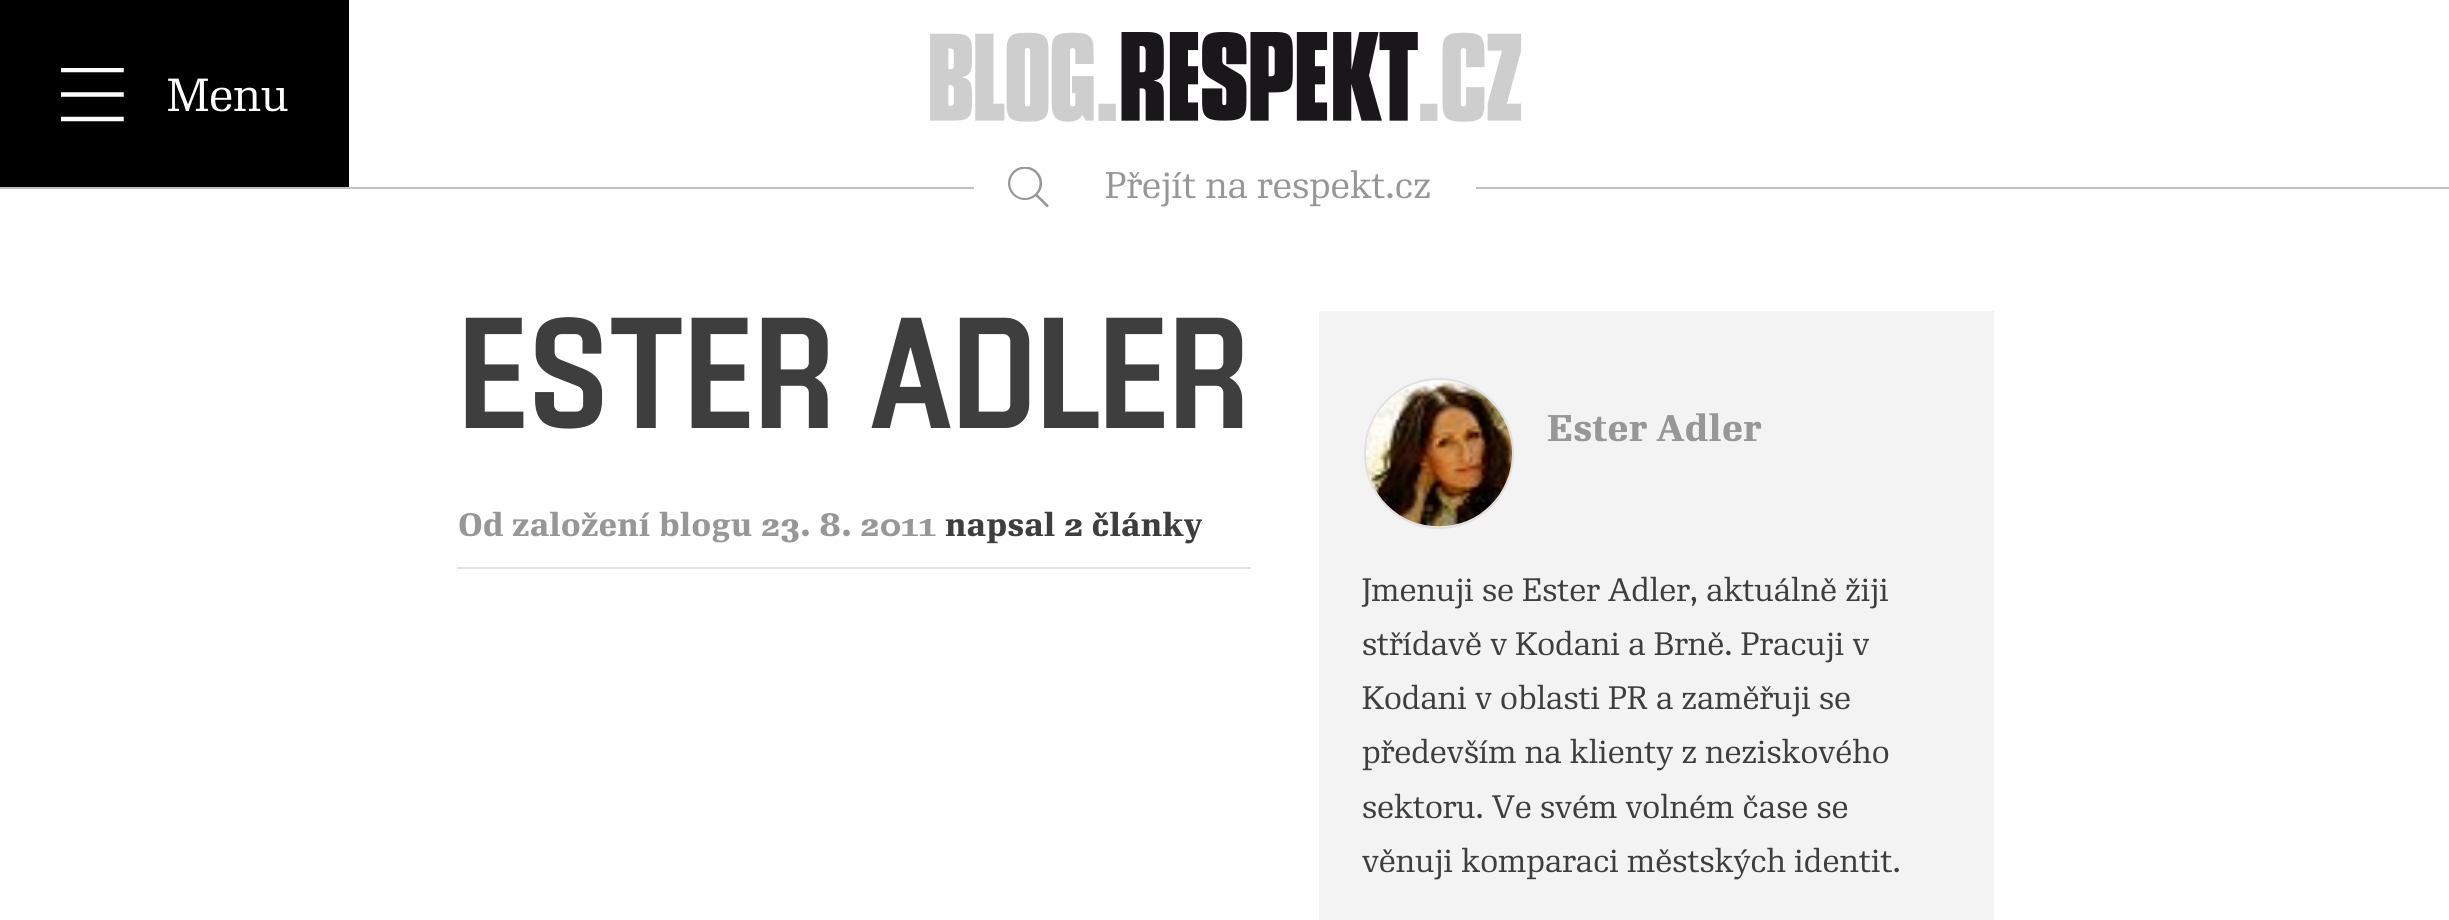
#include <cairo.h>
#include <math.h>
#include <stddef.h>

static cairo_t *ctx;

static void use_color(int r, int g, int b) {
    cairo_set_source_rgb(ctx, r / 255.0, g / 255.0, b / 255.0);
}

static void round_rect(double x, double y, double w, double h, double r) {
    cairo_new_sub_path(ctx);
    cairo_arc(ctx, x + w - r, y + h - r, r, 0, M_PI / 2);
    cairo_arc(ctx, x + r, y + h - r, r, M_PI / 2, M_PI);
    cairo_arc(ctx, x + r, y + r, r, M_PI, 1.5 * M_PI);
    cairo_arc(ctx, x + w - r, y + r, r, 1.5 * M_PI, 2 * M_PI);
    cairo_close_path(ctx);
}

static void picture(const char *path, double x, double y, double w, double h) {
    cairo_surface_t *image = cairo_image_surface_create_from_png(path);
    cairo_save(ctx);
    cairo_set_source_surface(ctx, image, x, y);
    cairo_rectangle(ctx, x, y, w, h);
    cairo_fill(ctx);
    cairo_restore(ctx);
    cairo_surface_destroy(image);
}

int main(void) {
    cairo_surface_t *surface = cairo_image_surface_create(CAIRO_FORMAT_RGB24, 2449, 920);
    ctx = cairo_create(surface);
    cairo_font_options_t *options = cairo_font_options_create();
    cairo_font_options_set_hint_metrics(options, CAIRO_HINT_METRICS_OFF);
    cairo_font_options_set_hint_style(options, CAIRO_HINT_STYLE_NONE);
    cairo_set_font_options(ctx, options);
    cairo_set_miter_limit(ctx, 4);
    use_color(255, 255, 255);
    cairo_paint(ctx);
    use_color(192, 192, 192);
    cairo_rectangle(ctx, 0, 187, 2449, 2);
    cairo_fill(ctx);
    use_color(0, 0, 0);
    cairo_rectangle(ctx, 0, 0, 349, 187);
    cairo_fill(ctx);
    cairo_save(ctx);
    cairo_rectangle(ctx, 61, 68, 63, 54);
    cairo_clip(ctx);
    cairo_new_path(ctx);
    cairo_move_to(ctx, 63, 70);
    cairo_line_to(ctx, 121.5, 70);
    cairo_move_to(ctx, 63, 94.5);
    cairo_line_to(ctx, 121.5, 94.5);
    cairo_move_to(ctx, 63, 119);
    cairo_line_to(ctx, 121.5, 119);
    use_color(255, 255, 255);
    cairo_set_line_width(ctx, 4.5);
    cairo_set_line_cap(ctx, CAIRO_LINE_CAP_SQUARE);
    cairo_stroke(ctx);
    cairo_restore(ctx);
    cairo_select_font_face(ctx, "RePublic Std", CAIRO_FONT_SLANT_NORMAL, CAIRO_FONT_WEIGHT_NORMAL);
    cairo_set_font_size(ctx, 45);
    use_color(255, 255, 255);
    cairo_move_to(ctx, 167, 111);
    cairo_show_text(ctx, "Menu");
    picture("img1.png", 930, 32, 592, 90);
    cairo_rectangle(ctx, 974, 187, 502, 2);
    cairo_fill(ctx);
    picture("img2.png", 1008, 167, 41, 40);
    cairo_set_font_size(ctx, 36);
    use_color(151, 151, 151);
    cairo_move_to(ctx, 1105, 198);
    cairo_show_text(ctx, "Přejít na respekt.cz");
    cairo_select_font_face(ctx, "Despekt", CAIRO_FONT_SLANT_NORMAL, CAIRO_FONT_WEIGHT_NORMAL);
    cairo_set_font_size(ctx, 157.5);
    use_color(62, 62, 62);
    cairo_move_to(ctx, 458, 428);
    cairo_show_text(ctx, "ESTER ADLER");
    use_color(227, 227, 227);
    cairo_rectangle(ctx, 457, 567, 794, 2);
    cairo_fill(ctx);
    cairo_select_font_face(ctx, "RePublic Std Medium", CAIRO_FONT_SLANT_NORMAL, CAIRO_FONT_WEIGHT_NORMAL);
    cairo_set_font_size(ctx, 31.5);
    use_color(151, 151, 151);
    cairo_move_to(ctx, 458, 536);
    cairo_show_text(ctx, "Od založení blogu 23. 8. 2011");
    use_color(62, 62, 62);
    cairo_move_to(ctx, 945, 536);
    cairo_show_text(ctx, "napsal 2 články");
    use_color(243, 243, 243);
    cairo_rectangle(ctx, 1319, 311, 675, 609);
    cairo_fill(ctx);
    round_rect(1365, 379, 148, 149, 74);
    use_color(224, 224, 224);
    cairo_stroke(ctx);
    picture("img3.png", 1366, 380, 146, 147);
    cairo_set_font_size(ctx, 36);
    use_color(151, 151, 151);
    cairo_move_to(ctx, 1547, 441);
    cairo_show_text(ctx, "Ester Adler");
    cairo_select_font_face(ctx, "RePublic Std", CAIRO_FONT_SLANT_NORMAL, CAIRO_FONT_WEIGHT_NORMAL);
    cairo_set_font_size(ctx, 31.5);
    use_color(62, 62, 62);
    cairo_move_to(ctx, 1362, 601);
    cairo_show_text(ctx, "Jmenuji se Ester Adler, aktuálně žiji");
    cairo_move_to(ctx, 1362, 655);
    cairo_show_text(ctx, "střídavě v Kodani a Brně. Pracuji v");
    cairo_move_to(ctx, 1362, 709);
    cairo_show_text(ctx, "Kodani v oblasti PR a zaměřuji se");
    cairo_move_to(ctx, 1362, 763);
    cairo_show_text(ctx, "především na klienty z neziskového");
    cairo_move_to(ctx, 1362, 818);
    cairo_show_text(ctx, "sektoru. Ve svém volném čase se");
    cairo_move_to(ctx, 1362, 872);
    cairo_show_text(ctx, "věnuji komparaci městských identit.");
    cairo_surface_write_to_png(surface, "result.png");
    cairo_font_options_destroy(options);
    cairo_destroy(ctx);
    cairo_surface_destroy(surface);
    return 0;
}
